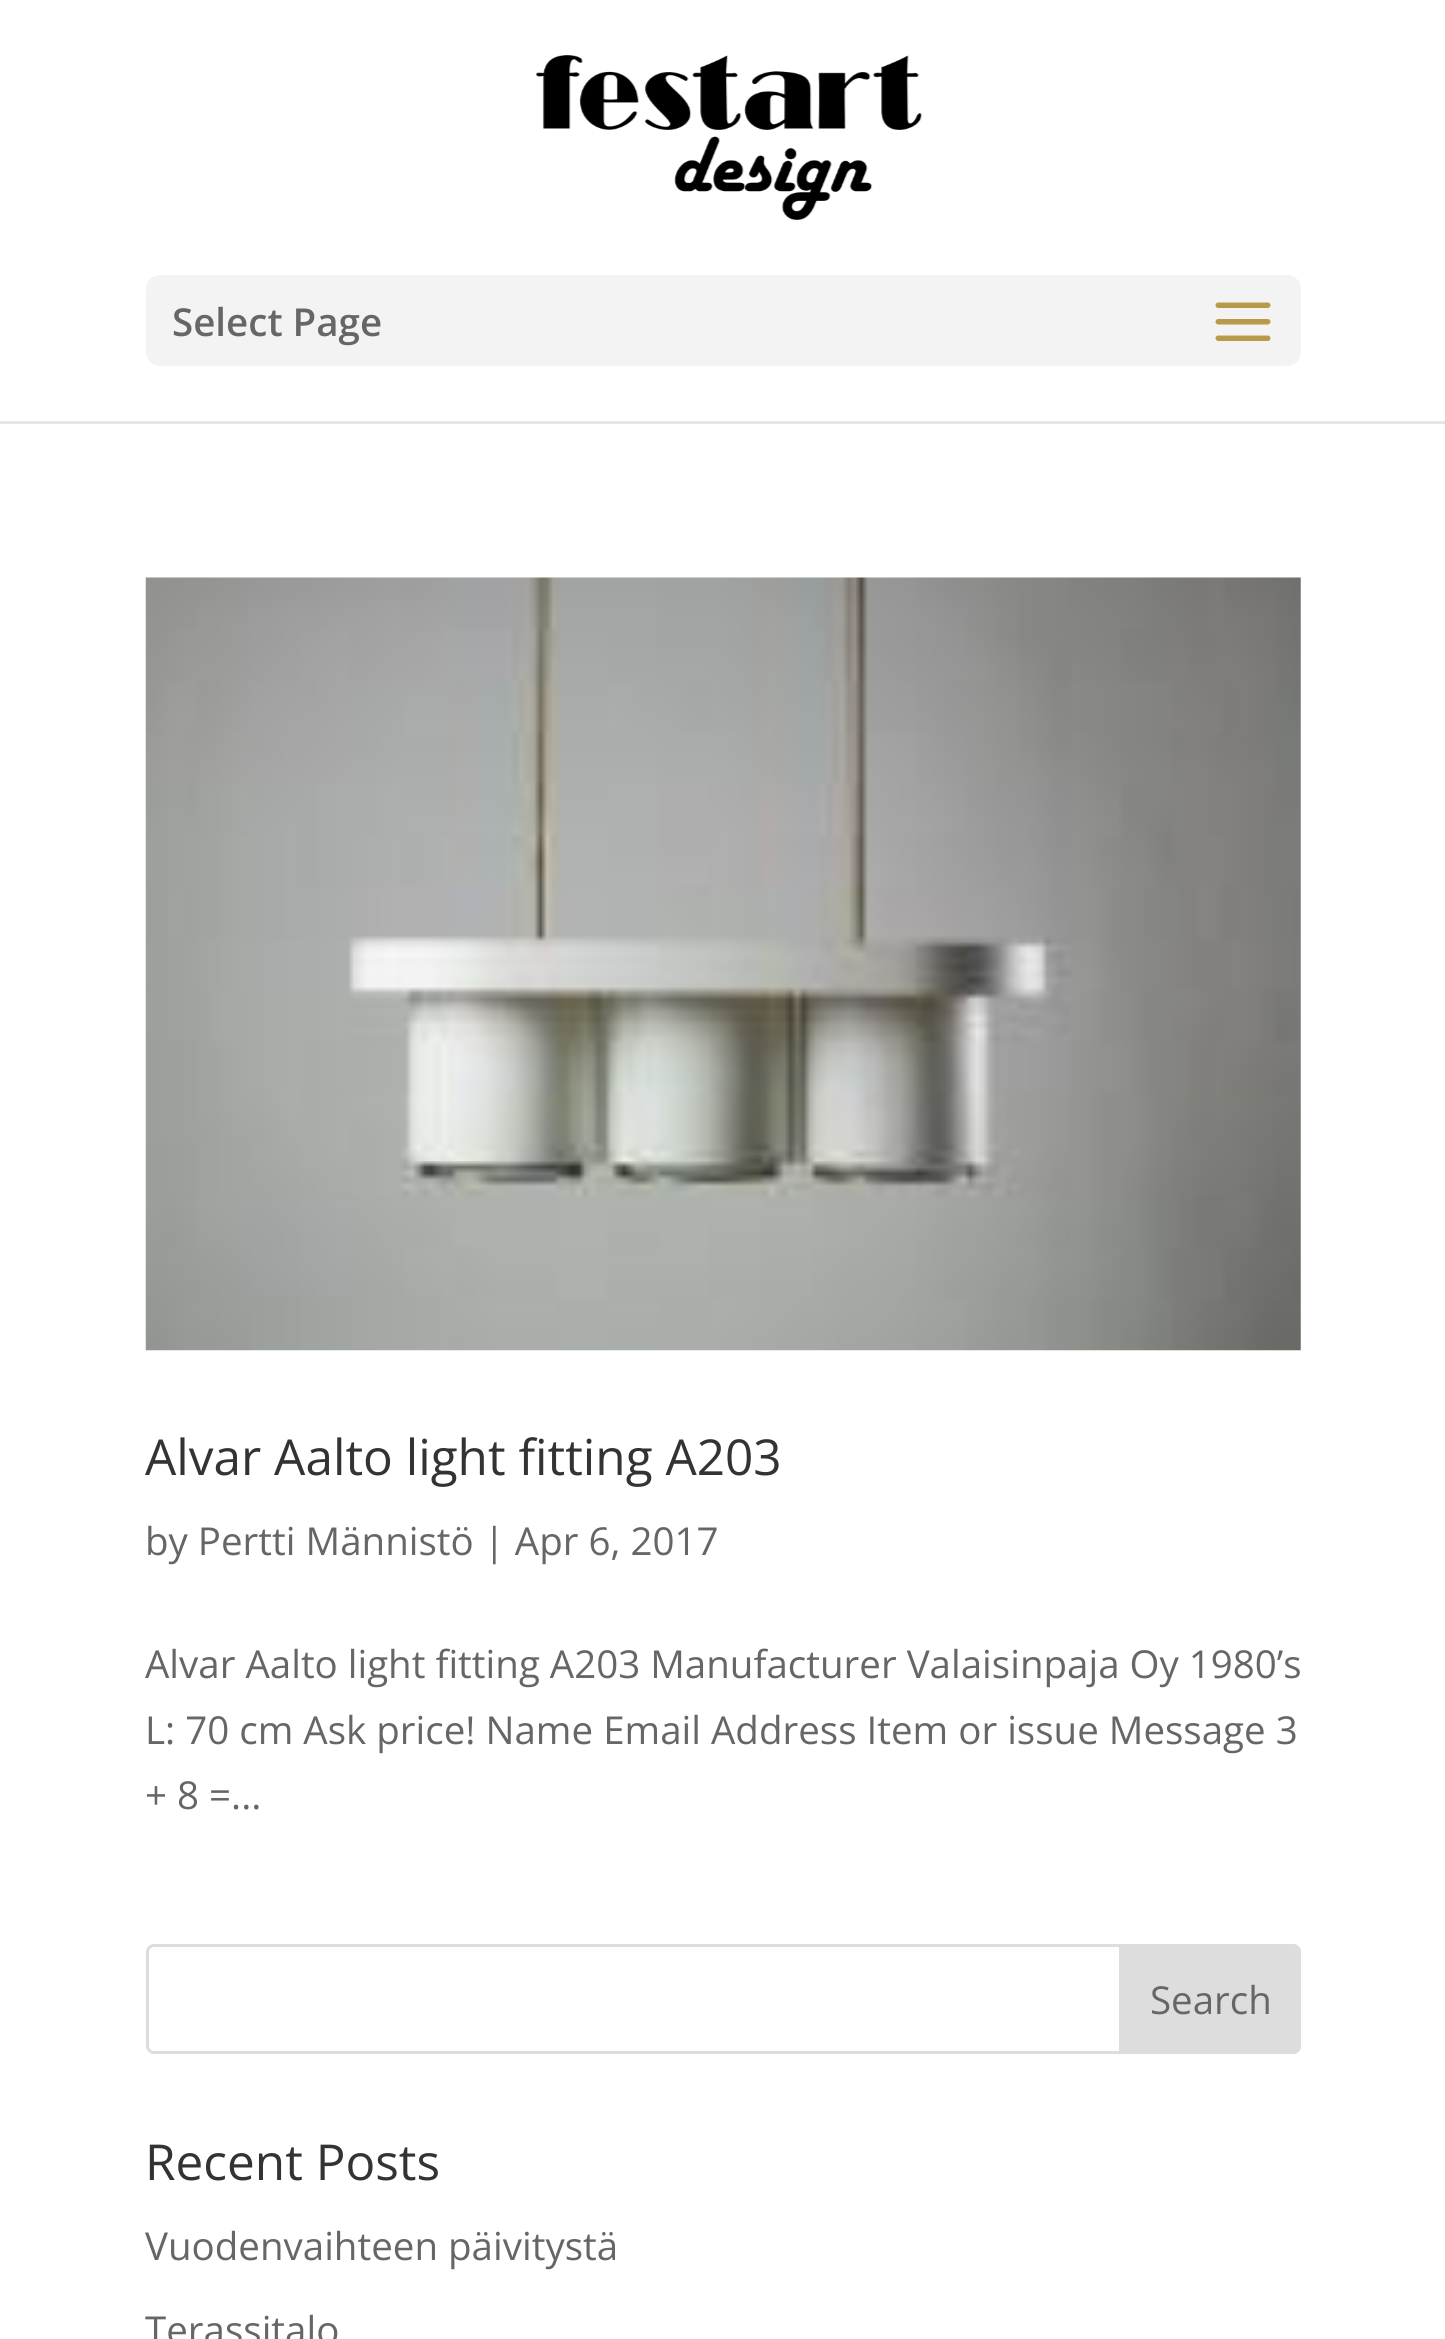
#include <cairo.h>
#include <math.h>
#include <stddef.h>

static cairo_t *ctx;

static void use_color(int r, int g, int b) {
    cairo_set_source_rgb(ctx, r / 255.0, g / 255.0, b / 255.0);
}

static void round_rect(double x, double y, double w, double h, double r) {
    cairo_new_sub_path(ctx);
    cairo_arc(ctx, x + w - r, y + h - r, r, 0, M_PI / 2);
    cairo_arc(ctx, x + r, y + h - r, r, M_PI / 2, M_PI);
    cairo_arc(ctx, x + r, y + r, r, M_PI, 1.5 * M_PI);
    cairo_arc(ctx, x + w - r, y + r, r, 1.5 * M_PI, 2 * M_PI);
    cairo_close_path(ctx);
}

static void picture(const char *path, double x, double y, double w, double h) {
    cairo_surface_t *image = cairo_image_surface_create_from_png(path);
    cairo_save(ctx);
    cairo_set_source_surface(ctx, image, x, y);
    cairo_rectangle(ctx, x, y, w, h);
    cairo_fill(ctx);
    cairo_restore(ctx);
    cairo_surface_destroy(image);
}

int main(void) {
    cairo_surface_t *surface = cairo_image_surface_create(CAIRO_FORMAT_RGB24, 1445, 2339);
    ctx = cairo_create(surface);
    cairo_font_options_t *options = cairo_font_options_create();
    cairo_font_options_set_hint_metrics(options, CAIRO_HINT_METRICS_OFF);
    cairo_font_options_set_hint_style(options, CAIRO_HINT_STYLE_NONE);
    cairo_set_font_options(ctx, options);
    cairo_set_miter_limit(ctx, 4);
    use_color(255, 255, 255);
    cairo_paint(ctx);
    use_color(230, 230, 230);
    cairo_new_path(ctx);
    cairo_move_to(ctx, 0, 421);
    cairo_line_to(ctx, 0, 424);
    cairo_line_to(ctx, 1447, 424);
    cairo_line_to(ctx, 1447, 3);
    cairo_line_to(ctx, 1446, 3);
    cairo_line_to(ctx, 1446, 421);
    cairo_close_path(ctx);
    cairo_fill(ctx);
    picture("img1.png", 536, 55, 386, 165);
    use_color(243, 243, 243);
    round_rect(146, 275, 1155, 91, 14);
    cairo_fill(ctx);
    cairo_select_font_face(ctx, "Open Sans SemiBold", CAIRO_FONT_SLANT_NORMAL, CAIRO_FONT_WEIGHT_NORMAL);
    cairo_set_font_size(ctx, 38.5);
    use_color(102, 102, 102);
    cairo_move_to(ctx, 172, 336);
    cairo_show_text(ctx, "Select Page");
    picture("img2.png", 1215, 302, 56, 39);
    picture("img3.png", 145, 577, 1156, 774);
    cairo_select_font_face(ctx, "Open Sans", CAIRO_FONT_SLANT_NORMAL, CAIRO_FONT_WEIGHT_NORMAL);
    cairo_set_font_size(ctx, 49.5);
    use_color(51, 51, 51);
    cairo_move_to(ctx, 145, 1475);
    cairo_show_text(ctx, "Alvar Aalto light fitting A203");
    cairo_set_font_size(ctx, 38.5);
    use_color(102, 102, 102);
    cairo_move_to(ctx, 145, 1555);
    cairo_show_text(ctx, "by Pertti Männistö | Apr 6, 2017");
    cairo_move_to(ctx, 145, 1678);
    cairo_show_text(ctx, "Alvar Aalto light fitting A203 Manufacturer Valaisinpaja Oy 1980’s");
    cairo_move_to(ctx, 145, 1744);
    cairo_show_text(ctx, "L: 70 cm Ask price! Name Email Address Item or issue Message 3");
    cairo_move_to(ctx, 145, 1809);
    cairo_show_text(ctx, "+ 8 =...");
    round_rect(147.5, 1945.5, 1152, 107, 6.5);
    use_color(221, 221, 221);
    cairo_set_line_width(ctx, 3);
    cairo_stroke(ctx);
    cairo_new_path(ctx);
    cairo_move_to(ctx, 1120.5, 1945.5);
    cairo_line_to(ctx, 1293, 1945.5);
    cairo_curve_to(ctx, 1296.5, 1945.5, 1299.5, 1948.5, 1299.5, 1952);
    cairo_line_to(ctx, 1299.5, 2046);
    cairo_curve_to(ctx, 1299.5, 2049.5, 1296.5, 2052.5, 1293, 2052.5);
    cairo_line_to(ctx, 1120.5, 2052.5);
    cairo_close_path(ctx);
    cairo_fill_preserve(ctx);
    cairo_stroke(ctx);
    use_color(102, 102, 102);
    cairo_move_to(ctx, 1150, 2014);
    cairo_show_text(ctx, "Search");
    cairo_set_font_size(ctx, 49.5);
    use_color(51, 51, 51);
    cairo_move_to(ctx, 145, 2180);
    cairo_show_text(ctx, "Recent Posts");
    cairo_set_font_size(ctx, 38.5);
    use_color(102, 102, 102);
    cairo_move_to(ctx, 145, 2260);
    cairo_show_text(ctx, "Vuodenvaihteen päivitystä");
    cairo_move_to(ctx, 145, 2344);
    cairo_show_text(ctx, "Terassitalo");
    cairo_surface_write_to_png(surface, "result.png");
    cairo_font_options_destroy(options);
    cairo_destroy(ctx);
    cairo_surface_destroy(surface);
    return 0;
}
